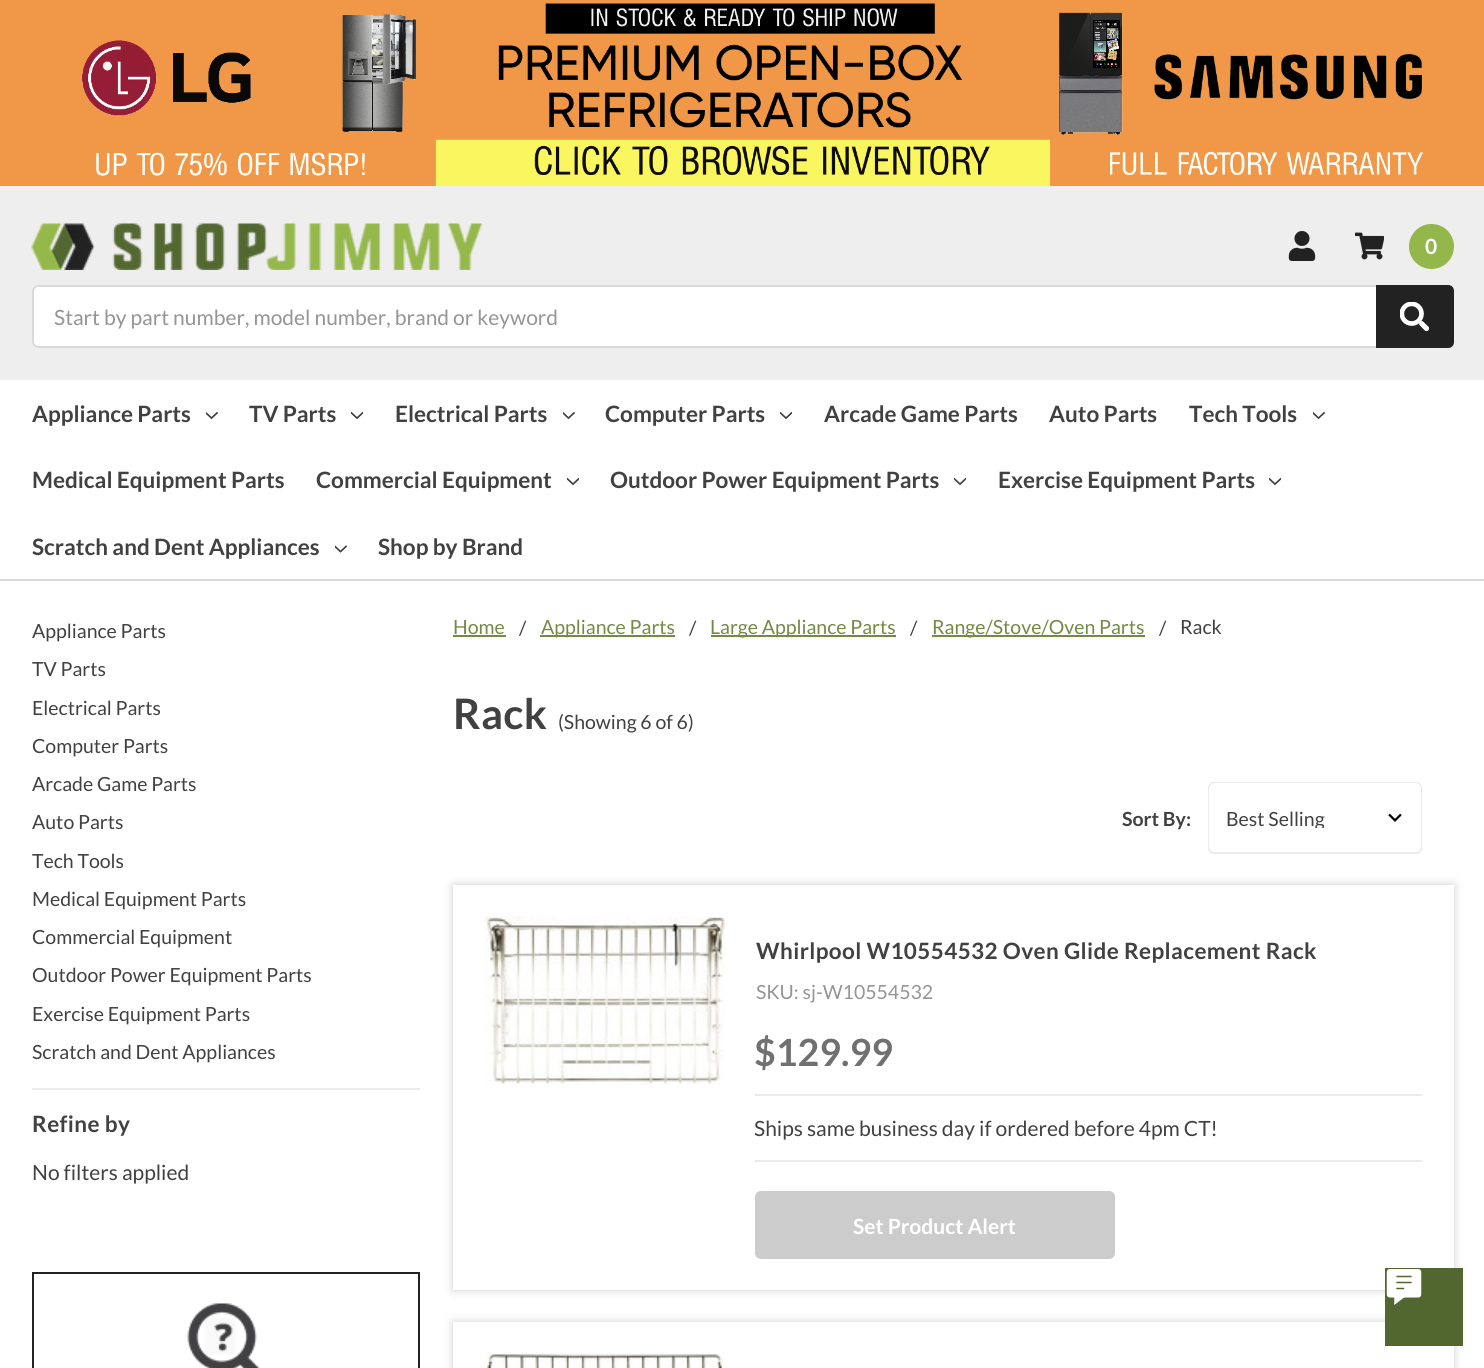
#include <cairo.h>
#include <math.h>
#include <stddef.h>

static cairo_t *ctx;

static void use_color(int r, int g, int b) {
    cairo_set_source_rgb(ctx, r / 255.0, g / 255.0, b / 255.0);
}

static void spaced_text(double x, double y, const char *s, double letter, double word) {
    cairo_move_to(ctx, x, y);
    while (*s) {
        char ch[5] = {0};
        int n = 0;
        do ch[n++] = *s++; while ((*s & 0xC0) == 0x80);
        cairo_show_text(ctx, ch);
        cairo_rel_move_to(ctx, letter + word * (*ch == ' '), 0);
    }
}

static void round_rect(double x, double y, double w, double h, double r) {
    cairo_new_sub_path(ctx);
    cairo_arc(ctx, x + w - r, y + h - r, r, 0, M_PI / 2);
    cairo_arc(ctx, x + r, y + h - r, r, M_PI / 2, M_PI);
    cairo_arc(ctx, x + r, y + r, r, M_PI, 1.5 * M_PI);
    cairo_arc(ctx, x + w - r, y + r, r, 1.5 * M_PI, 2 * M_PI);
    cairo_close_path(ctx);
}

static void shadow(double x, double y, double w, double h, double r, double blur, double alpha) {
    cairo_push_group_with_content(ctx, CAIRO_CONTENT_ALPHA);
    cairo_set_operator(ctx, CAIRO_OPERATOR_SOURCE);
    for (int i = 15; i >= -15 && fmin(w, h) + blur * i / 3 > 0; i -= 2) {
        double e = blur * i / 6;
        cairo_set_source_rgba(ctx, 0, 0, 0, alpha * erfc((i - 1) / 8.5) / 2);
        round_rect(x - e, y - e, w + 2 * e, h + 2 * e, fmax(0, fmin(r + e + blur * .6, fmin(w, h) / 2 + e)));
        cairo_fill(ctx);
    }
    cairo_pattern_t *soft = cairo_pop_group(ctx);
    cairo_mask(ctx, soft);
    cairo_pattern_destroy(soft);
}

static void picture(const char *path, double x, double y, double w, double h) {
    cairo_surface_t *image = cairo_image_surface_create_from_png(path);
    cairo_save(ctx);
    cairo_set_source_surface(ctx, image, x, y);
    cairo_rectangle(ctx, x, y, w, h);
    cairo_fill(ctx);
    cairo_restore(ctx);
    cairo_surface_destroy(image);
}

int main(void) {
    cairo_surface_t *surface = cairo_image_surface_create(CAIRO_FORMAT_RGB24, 1484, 1368);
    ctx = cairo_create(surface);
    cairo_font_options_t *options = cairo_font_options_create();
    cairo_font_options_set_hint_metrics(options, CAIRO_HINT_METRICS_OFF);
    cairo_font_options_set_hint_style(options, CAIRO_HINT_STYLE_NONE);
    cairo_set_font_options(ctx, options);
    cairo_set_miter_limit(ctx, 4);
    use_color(255, 255, 255);
    cairo_paint(ctx);
    use_color(238, 238, 238);
    cairo_rectangle(ctx, 0, 186, 1484, 194);
    cairo_fill(ctx);
    use_color(217, 217, 217);
    cairo_rectangle(ctx, 0, 579, 1484, 2);
    cairo_fill(ctx);
    picture("img1.png", 0, 0, 1484, 186);
    picture("img2.png", 31, 223, 451, 47);
    picture("img3.png", 1288, 231, 28, 30);
    picture("img4.png", 1355, 232, 29, 28);
    use_color(147, 183, 75);
    cairo_arc(ctx, 1431.5, 246.5, 22.5, 0, 2 * M_PI);
    cairo_fill(ctx);
    cairo_select_font_face(ctx, "Lato", CAIRO_FONT_SLANT_NORMAL, CAIRO_FONT_WEIGHT_BOLD);
    cairo_set_font_size(ctx, 21);
    use_color(255, 255, 255);
    cairo_move_to(ctx, 1425, 254);
    cairo_show_text(ctx, "0");
    round_rect(32, 285, 1422, 63, 6);
    cairo_fill(ctx);
    use_color(217, 217, 217);
    cairo_set_fill_rule(ctx, CAIRO_FILL_RULE_EVEN_ODD);
    cairo_new_path(ctx);
    cairo_move_to(ctx, 38, 285);
    cairo_curve_to(ctx, 35, 285, 32, 288, 32, 291);
    cairo_line_to(ctx, 32, 342);
    cairo_curve_to(ctx, 32, 345, 35, 348, 38, 348);
    cairo_line_to(ctx, 1448, 348);
    cairo_curve_to(ctx, 1451, 348, 1454, 345, 1454, 342);
    cairo_line_to(ctx, 1454, 291);
    cairo_curve_to(ctx, 1454, 288, 1451, 285, 1448, 285);
    cairo_close_path(ctx);
    cairo_move_to(ctx, 38, 287);
    cairo_curve_to(ctx, 36, 287, 34, 289, 34, 291);
    cairo_line_to(ctx, 34, 342);
    cairo_curve_to(ctx, 34, 344, 36, 346, 38, 346);
    cairo_line_to(ctx, 1452, 346);
    cairo_line_to(ctx, 1452, 287);
    cairo_close_path(ctx);
    cairo_fill(ctx);
    cairo_select_font_face(ctx, "Lato", CAIRO_FONT_SLANT_NORMAL, CAIRO_FONT_WEIGHT_NORMAL);
    use_color(149, 149, 149);
    cairo_move_to(ctx, 54, 325);
    cairo_show_text(ctx, "Start by part number, model number, brand or keyword");
    use_color(34, 34, 34);
    cairo_new_path(ctx);
    cairo_move_to(ctx, 1376, 285);
    cairo_line_to(ctx, 1448, 285);
    cairo_curve_to(ctx, 1451.5, 285, 1454, 287.5, 1454, 291);
    cairo_line_to(ctx, 1454, 342);
    cairo_curve_to(ctx, 1454, 345.5, 1451.5, 348, 1448, 348);
    cairo_line_to(ctx, 1376, 348);
    cairo_close_path(ctx);
    cairo_fill(ctx);
    picture("img5.png", 1400, 302, 29, 29);
    cairo_select_font_face(ctx, "Lato", CAIRO_FONT_SLANT_NORMAL, CAIRO_FONT_WEIGHT_BOLD);
    cairo_set_font_size(ctx, 22.5);
    use_color(65, 65, 65);
    cairo_move_to(ctx, 32, 422);
    cairo_show_text(ctx, "Appliance Parts");
    picture("img6.png", 206, 411, 12, 9);
    cairo_move_to(ctx, 249, 422);
    cairo_show_text(ctx, "TV Parts");
    picture("img7.png", 351, 411, 12, 9);
    cairo_move_to(ctx, 395, 422);
    cairo_show_text(ctx, "Electrical Parts");
    picture("img6.png", 563, 411, 12, 9);
    cairo_move_to(ctx, 605, 422);
    cairo_show_text(ctx, "Computer Parts");
    picture("img7.png", 780, 411, 12, 9);
    cairo_move_to(ctx, 824, 422);
    cairo_show_text(ctx, "Arcade Game Parts");
    cairo_move_to(ctx, 1049, 422);
    cairo_show_text(ctx, "Auto Parts");
    cairo_move_to(ctx, 1189, 422);
    cairo_show_text(ctx, "Tech Tools");
    picture("img6.png", 1313, 411, 12, 9);
    cairo_move_to(ctx, 32, 488);
    cairo_show_text(ctx, "Medical Equipment Parts");
    cairo_move_to(ctx, 316, 488);
    cairo_show_text(ctx, "Commercial Equipment");
    picture("img7.png", 567, 477, 12, 9);
    cairo_move_to(ctx, 610, 488);
    cairo_show_text(ctx, "Outdoor Power Equipment Parts");
    picture("img7.png", 954, 477, 12, 9);
    cairo_move_to(ctx, 998, 488);
    cairo_show_text(ctx, "Exercise Equipment Parts");
    picture("img7.png", 1269, 477, 12, 9);
    cairo_move_to(ctx, 32, 555);
    cairo_show_text(ctx, "Scratch and Dent Appliances");
    picture("img8.png", 335, 545, 12, 8);
    cairo_move_to(ctx, 378, 555);
    cairo_show_text(ctx, "Shop by Brand");
    cairo_select_font_face(ctx, "Lato", CAIRO_FONT_SLANT_NORMAL, CAIRO_FONT_WEIGHT_NORMAL);
    cairo_set_font_size(ctx, 19.5);
    cairo_move_to(ctx, 32, 638);
    cairo_show_text(ctx, "Appliance Parts");
    cairo_move_to(ctx, 32, 676);
    cairo_show_text(ctx, "TV Parts");
    cairo_move_to(ctx, 32, 715);
    cairo_show_text(ctx, "Electrical Parts");
    cairo_move_to(ctx, 32, 753);
    cairo_show_text(ctx, "Computer Parts");
    cairo_move_to(ctx, 32, 791);
    cairo_show_text(ctx, "Arcade Game Parts");
    cairo_move_to(ctx, 32, 829);
    cairo_show_text(ctx, "Auto Parts");
    cairo_move_to(ctx, 32, 868);
    cairo_show_text(ctx, "Tech Tools");
    cairo_move_to(ctx, 32, 906);
    cairo_show_text(ctx, "Medical Equipment Parts");
    cairo_move_to(ctx, 32, 944);
    cairo_show_text(ctx, "Commercial Equipment");
    cairo_move_to(ctx, 32, 982);
    cairo_show_text(ctx, "Outdoor Power Equipment Parts");
    cairo_move_to(ctx, 32, 1021);
    cairo_show_text(ctx, "Exercise Equipment Parts");
    cairo_move_to(ctx, 32, 1059);
    cairo_show_text(ctx, "Scratch and Dent Appliances");
    use_color(235, 235, 235);
    cairo_rectangle(ctx, 32, 1088, 388, 2);
    cairo_fill(ctx);
    cairo_select_font_face(ctx, "Lato", CAIRO_FONT_SLANT_NORMAL, CAIRO_FONT_WEIGHT_BOLD);
    cairo_set_font_size(ctx, 22.5);
    use_color(65, 65, 65);
    spaced_text(32, 1132, "Refine by", 0.4, 0);
    cairo_select_font_face(ctx, "Lato", CAIRO_FONT_SLANT_NORMAL, CAIRO_FONT_WEIGHT_NORMAL);
    cairo_set_font_size(ctx, 21);
    cairo_move_to(ctx, 32, 1180);
    cairo_show_text(ctx, "No filters applied");
    cairo_rectangle(ctx, 33, 1273, 386, 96);
    use_color(34, 34, 34);
    cairo_stroke(ctx);
    picture("img9.png", 187, 1303, 73, 65);
    cairo_set_font_size(ctx, 19.5);
    use_color(114, 139, 68);
    cairo_move_to(ctx, 453, 634);
    cairo_show_text(ctx, "Home");
    cairo_rectangle(ctx, 453, 635, 53, 2);
    cairo_fill(ctx);
    use_color(65, 65, 65);
    cairo_move_to(ctx, 519, 635);
    cairo_show_text(ctx, "/");
    use_color(114, 139, 68);
    cairo_rectangle(ctx, 540, 635, 135, 2);
    cairo_fill(ctx);
    cairo_move_to(ctx, 541, 634);
    cairo_show_text(ctx, "Appliance Parts");
    use_color(65, 65, 65);
    cairo_move_to(ctx, 689, 635);
    cairo_show_text(ctx, "/");
    use_color(114, 139, 68);
    cairo_rectangle(ctx, 711, 635, 185, 2);
    cairo_fill(ctx);
    cairo_move_to(ctx, 710, 634);
    cairo_show_text(ctx, "Large Appliance Parts");
    use_color(65, 65, 65);
    cairo_move_to(ctx, 910, 635);
    cairo_show_text(ctx, "/");
    use_color(114, 139, 68);
    cairo_rectangle(ctx, 932, 635, 213, 2);
    cairo_fill(ctx);
    cairo_move_to(ctx, 932, 634);
    cairo_show_text(ctx, "Range/Stove/Oven Parts");
    use_color(65, 65, 65);
    cairo_move_to(ctx, 1159, 635);
    cairo_show_text(ctx, "/");
    cairo_move_to(ctx, 1180, 634);
    cairo_show_text(ctx, "Rack");
    cairo_select_font_face(ctx, "Lato", CAIRO_FONT_SLANT_NORMAL, CAIRO_FONT_WEIGHT_BOLD);
    cairo_set_font_size(ctx, 42);
    spaced_text(453, 729, "Rack", 0.4, 0);
    cairo_select_font_face(ctx, "Lato", CAIRO_FONT_SLANT_NORMAL, CAIRO_FONT_WEIGHT_NORMAL);
    cairo_set_font_size(ctx, 19.5);
    cairo_move_to(ctx, 558, 729);
    cairo_show_text(ctx, "(Showing 6 of 6)");
    cairo_select_font_face(ctx, "Lato", CAIRO_FONT_SLANT_NORMAL, CAIRO_FONT_WEIGHT_BOLD);
    cairo_move_to(ctx, 1122, 826);
    cairo_show_text(ctx, "Sort By:");
    round_rect(1209, 783, 212, 70, 5);
    use_color(235, 235, 235);
    cairo_stroke(ctx);
    cairo_save(ctx);
    cairo_set_fill_rule(ctx, CAIRO_FILL_RULE_WINDING);
    round_rect(1209, 783, 212, 69, 5);
    cairo_clip(ctx);
    use_color(255, 255, 255);
    round_rect(1209, 783, 212, 69, 6);
    cairo_fill(ctx);
    cairo_restore(ctx);
    picture("img10.png", 1388, 813, 14, 9);
    cairo_save(ctx);
    cairo_set_fill_rule(ctx, CAIRO_FILL_RULE_WINDING);
    cairo_rectangle(ctx, 1226, 807, 153, 21);
    cairo_clip(ctx);
    cairo_select_font_face(ctx, "Lato", CAIRO_FONT_SLANT_NORMAL, CAIRO_FONT_WEIGHT_NORMAL);
    use_color(65, 65, 65);
    cairo_move_to(ctx, 1226, 826);
    cairo_show_text(ctx, "Best Selling");
    cairo_restore(ctx);
    use_color(0, 0, 0);
    shadow(453, 885, 1001, 405, 0, 4.5, 0.2);
    use_color(255, 255, 255);
    cairo_rectangle(ctx, 453, 885, 1001, 405);
    cairo_fill(ctx);
    picture("img11.png", 484, 916, 241, 169);
    cairo_set_font_size(ctx, 22.5);
    use_color(65, 65, 65);
    spaced_text(756, 959, "Whirlpool W10554532 Oven Glide Replacement Rack", 0.4, 0);
    cairo_select_font_face(ctx, "Lato", CAIRO_FONT_SLANT_NORMAL, CAIRO_FONT_WEIGHT_NORMAL);
    cairo_set_font_size(ctx, 19.5);
    use_color(149, 149, 149);
    cairo_move_to(ctx, 756, 999);
    cairo_show_text(ctx, "SKU: sj-W10554532");
    use_color(235, 235, 235);
    cairo_rectangle(ctx, 755, 1094, 667, 2);
    cairo_fill(ctx);
    cairo_select_font_face(ctx, "Lato", CAIRO_FONT_SLANT_NORMAL, CAIRO_FONT_WEIGHT_BOLD);
    cairo_set_font_size(ctx, 37.5);
    use_color(112, 112, 112);
    cairo_move_to(ctx, 754, 1066);
    cairo_show_text(ctx, "$129.99");
    use_color(235, 235, 235);
    cairo_rectangle(ctx, 755, 1160, 667, 2);
    cairo_fill(ctx);
    cairo_select_font_face(ctx, "Lato", CAIRO_FONT_SLANT_NORMAL, CAIRO_FONT_WEIGHT_NORMAL);
    cairo_set_font_size(ctx, 21);
    use_color(65, 65, 65);
    cairo_move_to(ctx, 754, 1136);
    cairo_show_text(ctx, "Ships same business day if ordered before 4pm CT!");
    use_color(204, 204, 204);
    round_rect(755, 1191, 360, 68, 6);
    cairo_fill(ctx);
    cairo_select_font_face(ctx, "Lato", CAIRO_FONT_SLANT_NORMAL, CAIRO_FONT_WEIGHT_BOLD);
    use_color(255, 255, 255);
    cairo_move_to(ctx, 853, 1234);
    cairo_show_text(ctx, "Set Product Alert");
    use_color(0, 0, 0);
    shadow(453, 1322, 1001, 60, 0, 4.5, 0.2);
    use_color(255, 255, 255);
    cairo_rectangle(ctx, 453, 1322, 1001, 46);
    cairo_fill(ctx);
    picture("img12.png", 486, 1353, 238, 15);
    use_color(82, 103, 47);
    cairo_rectangle(ctx, 1385, 1268, 78, 78);
    cairo_fill(ctx);
    picture("img13.png", 1386, 1269, 36, 36);
    cairo_surface_write_to_png(surface, "result.png");
    cairo_font_options_destroy(options);
    cairo_destroy(ctx);
    cairo_surface_destroy(surface);
    return 0;
}
